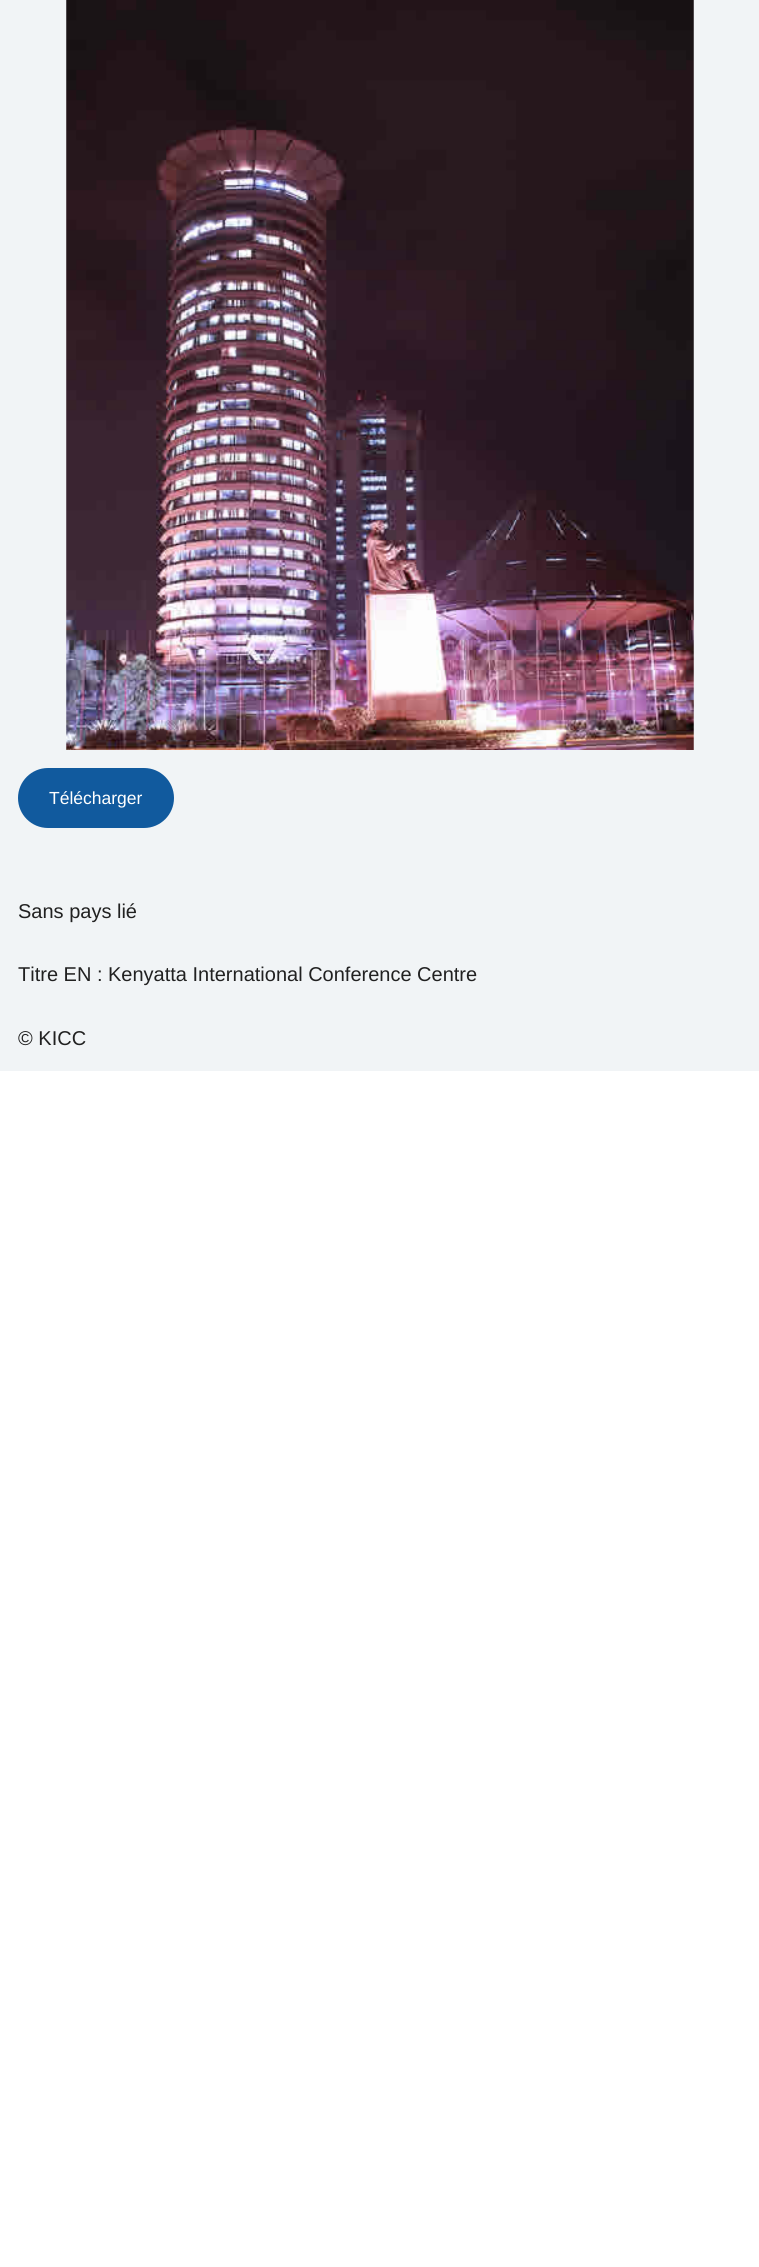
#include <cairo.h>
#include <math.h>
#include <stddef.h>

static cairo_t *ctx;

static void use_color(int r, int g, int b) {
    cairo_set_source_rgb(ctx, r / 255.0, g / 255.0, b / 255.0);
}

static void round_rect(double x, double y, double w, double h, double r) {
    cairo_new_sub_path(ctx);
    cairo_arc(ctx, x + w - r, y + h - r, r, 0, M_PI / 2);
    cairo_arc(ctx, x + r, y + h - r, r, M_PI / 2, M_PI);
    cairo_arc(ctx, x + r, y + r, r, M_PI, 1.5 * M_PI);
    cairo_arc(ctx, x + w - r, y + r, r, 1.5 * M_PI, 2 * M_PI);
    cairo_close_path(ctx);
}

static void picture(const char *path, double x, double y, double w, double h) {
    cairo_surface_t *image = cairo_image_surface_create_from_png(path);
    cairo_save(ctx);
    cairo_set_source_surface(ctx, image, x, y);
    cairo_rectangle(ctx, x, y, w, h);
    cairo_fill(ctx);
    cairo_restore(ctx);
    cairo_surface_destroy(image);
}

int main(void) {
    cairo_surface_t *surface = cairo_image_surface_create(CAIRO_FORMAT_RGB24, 759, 2267);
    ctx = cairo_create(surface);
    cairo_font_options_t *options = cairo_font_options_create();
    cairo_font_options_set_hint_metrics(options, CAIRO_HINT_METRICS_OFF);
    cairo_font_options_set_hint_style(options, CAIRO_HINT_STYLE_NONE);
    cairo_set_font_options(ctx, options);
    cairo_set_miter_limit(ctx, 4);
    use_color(255, 255, 255);
    cairo_paint(ctx);
    use_color(241, 244, 246);
    cairo_rectangle(ctx, 0, 0, 759, 1071);
    cairo_fill(ctx);
    picture("img1.png", 66, 0, 628, 750);
    use_color(17, 90, 158);
    round_rect(18, 768, 156, 60, 30);
    cairo_fill(ctx);
    cairo_select_font_face(ctx, "Liberation Sans", CAIRO_FONT_SLANT_NORMAL, CAIRO_FONT_WEIGHT_NORMAL);
    cairo_set_font_size(ctx, 17.5);
    use_color(255, 255, 255);
    cairo_move_to(ctx, 49, 804);
    cairo_show_text(ctx, "Télécharger");
    cairo_set_font_size(ctx, 20);
    use_color(33, 33, 33);
    cairo_move_to(ctx, 18, 918);
    cairo_show_text(ctx, "Sans pays lié");
    cairo_move_to(ctx, 18, 981);
    cairo_show_text(ctx, "Titre EN : Kenyatta International Conference Centre");
    cairo_move_to(ctx, 18, 1045);
    cairo_show_text(ctx, "© KICC");
    cairo_surface_write_to_png(surface, "result.png");
    cairo_font_options_destroy(options);
    cairo_destroy(ctx);
    cairo_surface_destroy(surface);
    return 0;
}
